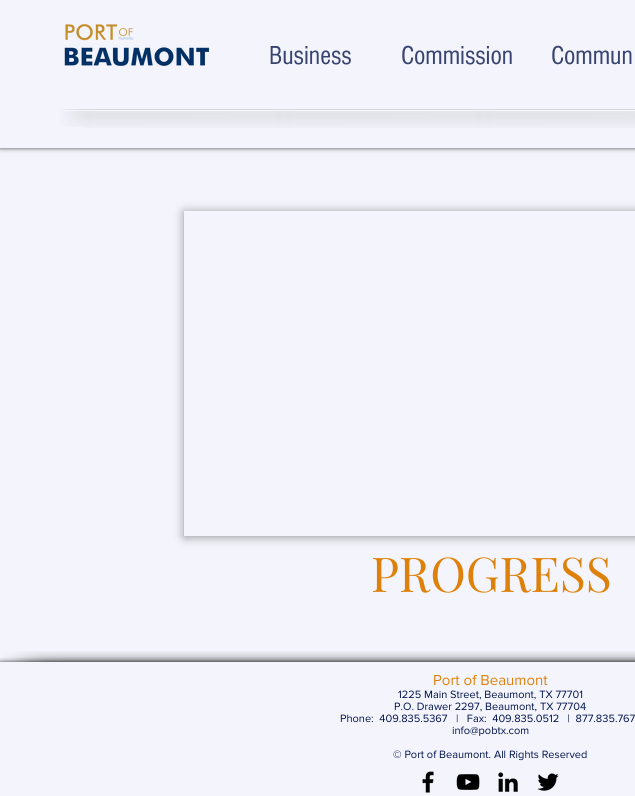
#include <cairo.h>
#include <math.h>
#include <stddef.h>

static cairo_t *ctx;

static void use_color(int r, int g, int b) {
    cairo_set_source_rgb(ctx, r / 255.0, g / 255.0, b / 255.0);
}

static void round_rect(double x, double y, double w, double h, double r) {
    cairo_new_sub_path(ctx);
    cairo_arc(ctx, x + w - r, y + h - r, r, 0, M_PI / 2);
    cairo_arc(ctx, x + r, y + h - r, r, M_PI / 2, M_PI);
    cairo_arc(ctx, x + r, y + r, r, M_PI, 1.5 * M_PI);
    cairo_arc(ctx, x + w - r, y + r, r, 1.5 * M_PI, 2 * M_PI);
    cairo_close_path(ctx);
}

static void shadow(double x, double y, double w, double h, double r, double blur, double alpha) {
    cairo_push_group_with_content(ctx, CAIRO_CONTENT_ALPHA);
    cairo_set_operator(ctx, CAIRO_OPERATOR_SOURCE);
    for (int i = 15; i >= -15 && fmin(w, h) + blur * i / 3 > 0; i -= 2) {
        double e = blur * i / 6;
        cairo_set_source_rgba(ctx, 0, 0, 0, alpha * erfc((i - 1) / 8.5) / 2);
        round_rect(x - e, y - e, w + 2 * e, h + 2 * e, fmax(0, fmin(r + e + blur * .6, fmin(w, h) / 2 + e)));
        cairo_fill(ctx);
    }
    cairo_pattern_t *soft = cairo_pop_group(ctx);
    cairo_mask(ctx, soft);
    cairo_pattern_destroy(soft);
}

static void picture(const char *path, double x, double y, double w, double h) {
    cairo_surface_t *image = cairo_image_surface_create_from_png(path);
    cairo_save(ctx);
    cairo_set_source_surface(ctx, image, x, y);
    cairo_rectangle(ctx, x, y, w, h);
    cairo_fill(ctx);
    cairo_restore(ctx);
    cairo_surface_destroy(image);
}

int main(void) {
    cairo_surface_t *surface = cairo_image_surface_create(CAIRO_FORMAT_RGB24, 635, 796);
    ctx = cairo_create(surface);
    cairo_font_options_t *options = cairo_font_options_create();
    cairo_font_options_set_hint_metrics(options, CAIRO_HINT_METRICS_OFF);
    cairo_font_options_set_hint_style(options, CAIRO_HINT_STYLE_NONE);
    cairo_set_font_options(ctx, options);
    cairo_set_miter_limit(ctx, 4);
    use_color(244, 244, 252);
    cairo_paint(ctx);
    use_color(0, 0, 0);
    shadow(0, 0, 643, 148, 0, 2.5, 0.7);
    use_color(244, 244, 252);
    cairo_rectangle(ctx, 0, 0, 635, 148);
    cairo_fill(ctx);
    picture("img1.png", 64, 24, 145, 42);
    cairo_select_font_face(ctx, "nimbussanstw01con", CAIRO_FONT_SLANT_NORMAL, CAIRO_FONT_WEIGHT_NORMAL);
    cairo_set_font_size(ctx, 27);
    use_color(56, 69, 112);
    cairo_move_to(ctx, 269, 64);
    cairo_show_text(ctx, "Business");
    cairo_move_to(ctx, 401, 64);
    cairo_show_text(ctx, "Commission");
    cairo_move_to(ctx, 551, 64);
    cairo_show_text(ctx, "Commun");
    picture("img2.png", 60, 109, 24, 18);
    picture("img3.png", 84, 109, 551, 19);
    cairo_save(ctx);
    cairo_set_fill_rule(ctx, CAIRO_FILL_RULE_EVEN_ODD);
    cairo_new_path(ctx);
    cairo_move_to(ctx, 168, 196);
    cairo_line_to(ctx, 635, 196);
    cairo_line_to(ctx, 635, 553);
    cairo_line_to(ctx, 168, 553);
    cairo_close_path(ctx);
    cairo_move_to(ctx, 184, 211);
    cairo_line_to(ctx, 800, 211);
    cairo_line_to(ctx, 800, 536);
    cairo_line_to(ctx, 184, 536);
    cairo_close_path(ctx);
    cairo_clip(ctx);
    use_color(0, 0, 0);
    shadow(184, 212, 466, 325, 0, 5, 0.4);
    cairo_restore(ctx);
    cairo_select_font_face(ctx, "Playfair Display", CAIRO_FONT_SLANT_NORMAL, CAIRO_FONT_WEIGHT_NORMAL);
    cairo_set_font_size(ctx, 48);
    use_color(222, 129, 10);
    cairo_move_to(ctx, 371, 592);
    cairo_show_text(ctx, "PROGRESS");
    cairo_save(ctx);
    cairo_rectangle(ctx, 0, 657, 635, 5);
    cairo_clip(ctx);
    use_color(0, 0, 0);
    shadow(0, 662, 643, 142, 0, 2.5, 0.7);
    cairo_restore(ctx);
    picture("img4.png", 3, 651, 97, 11);
    picture("img5.png", 100, 651, 535, 11);
    cairo_select_font_face(ctx, "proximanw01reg", CAIRO_FONT_SLANT_NORMAL, CAIRO_FONT_WEIGHT_NORMAL);
    cairo_set_font_size(ctx, 15);
    cairo_move_to(ctx, 433, 685);
    cairo_show_text(ctx, "Port of Beaumont");
    cairo_set_font_size(ctx, 11);
    use_color(0, 18, 76);
    cairo_move_to(ctx, 398, 698);
    cairo_show_text(ctx, "1225 Main Street, Beaumont, TX 77701");
    cairo_move_to(ctx, 394, 710);
    cairo_show_text(ctx, "P.O. Drawer 2297, Beaumont, TX 77704");
    cairo_move_to(ctx, 340, 722);
    cairo_show_text(ctx, "Phone:  409.835.5367   |   Fax:  409.835.0512   |  877.835.767");
    cairo_move_to(ctx, 452, 734);
    cairo_show_text(ctx, "info@pobtx.com");
    cairo_move_to(ctx, 393, 758);
    cairo_show_text(ctx, "© Port of Beaumont. All Rights Reserved");
    picture("img6.png", 422, 771, 12, 22);
    picture("img7.png", 456, 774, 24, 16);
    picture("img8.png", 498, 772, 20, 20);
    picture("img9.png", 537, 773, 22, 18);
    cairo_surface_write_to_png(surface, "result.png");
    cairo_font_options_destroy(options);
    cairo_destroy(ctx);
    cairo_surface_destroy(surface);
    return 0;
}
